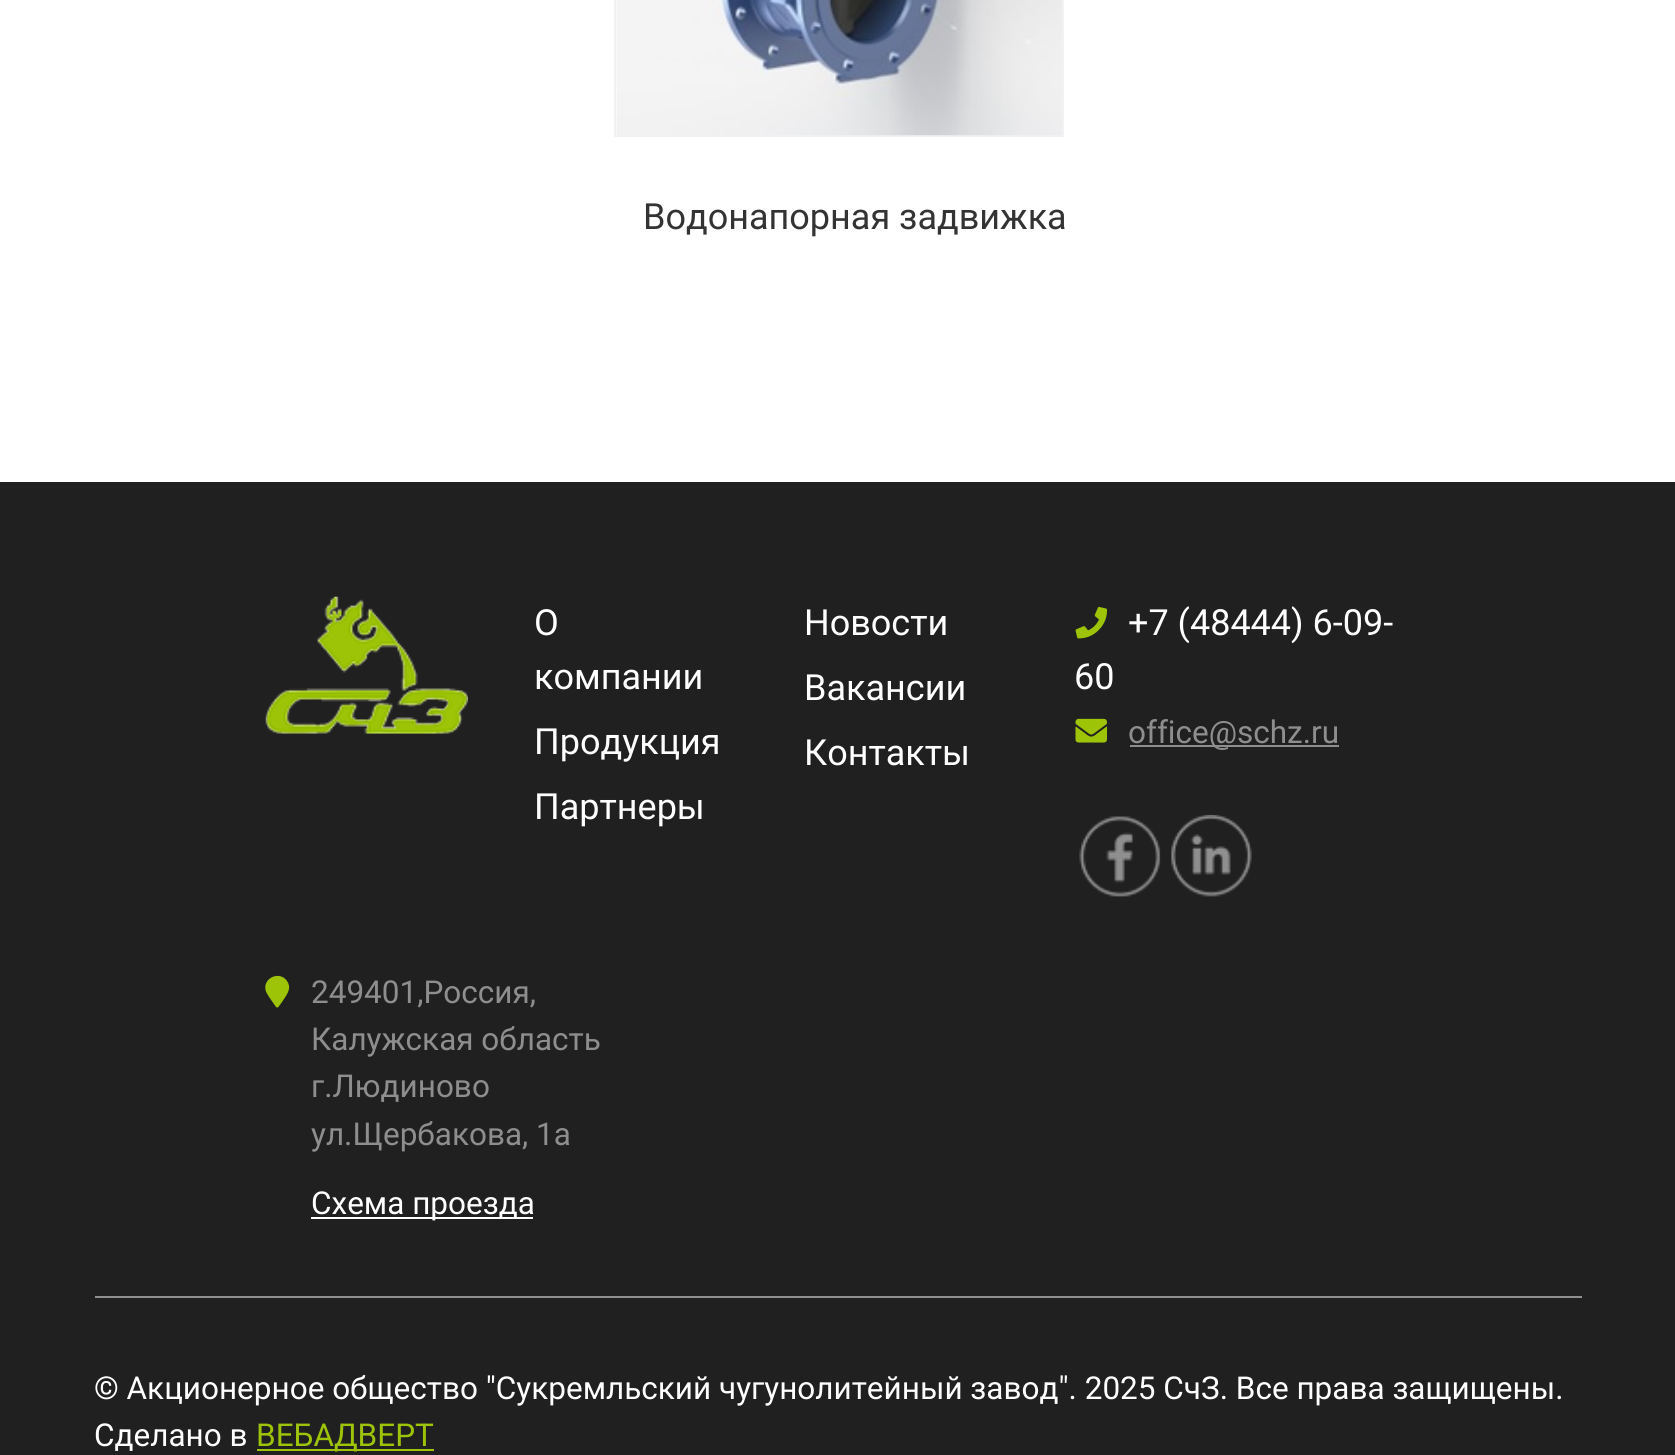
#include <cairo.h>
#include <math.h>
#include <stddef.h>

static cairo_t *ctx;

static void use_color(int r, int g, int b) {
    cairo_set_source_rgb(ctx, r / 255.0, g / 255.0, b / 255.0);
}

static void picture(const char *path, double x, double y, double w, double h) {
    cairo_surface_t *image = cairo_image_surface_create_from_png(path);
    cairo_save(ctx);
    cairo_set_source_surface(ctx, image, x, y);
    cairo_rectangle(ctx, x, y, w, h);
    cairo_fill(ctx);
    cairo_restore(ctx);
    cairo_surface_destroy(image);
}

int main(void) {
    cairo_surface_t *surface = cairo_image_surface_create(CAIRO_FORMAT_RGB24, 1675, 1455);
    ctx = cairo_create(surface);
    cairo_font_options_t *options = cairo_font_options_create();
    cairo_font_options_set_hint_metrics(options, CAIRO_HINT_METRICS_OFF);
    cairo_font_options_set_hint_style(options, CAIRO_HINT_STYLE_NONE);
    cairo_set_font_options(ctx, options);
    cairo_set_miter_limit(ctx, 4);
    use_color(255, 255, 255);
    cairo_paint(ctx);
    cairo_rectangle(ctx, 615, -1, 448, 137);
    use_color(242, 242, 242);
    cairo_stroke(ctx);
    picture("img1.png", 616, 0, 446, 136);
    cairo_select_font_face(ctx, "Roboto", CAIRO_FONT_SLANT_NORMAL, CAIRO_FONT_WEIGHT_NORMAL);
    cairo_set_font_size(ctx, 36);
    use_color(51, 51, 51);
    cairo_move_to(ctx, 643, 229);
    cairo_show_text(ctx, "Водонапорная задвижка");
    use_color(32, 32, 32);
    cairo_rectangle(ctx, 0, 482, 1675, 973);
    cairo_fill(ctx);
    picture("img2.png", 265, 596, 203, 138);
    use_color(255, 255, 255);
    cairo_move_to(ctx, 534, 635);
    cairo_show_text(ctx, "О");
    cairo_move_to(ctx, 534, 689);
    cairo_show_text(ctx, "компании");
    cairo_move_to(ctx, 534, 754);
    cairo_show_text(ctx, "Продукция");
    cairo_move_to(ctx, 534, 819);
    cairo_show_text(ctx, "Партнеры");
    cairo_move_to(ctx, 804, 635);
    cairo_show_text(ctx, "Новости");
    cairo_move_to(ctx, 804, 700);
    cairo_show_text(ctx, "Вакансии");
    cairo_move_to(ctx, 804, 765);
    cairo_show_text(ctx, "Контакты");
    picture("img3.png", 1075, 607, 33, 32);
    cairo_move_to(ctx, 1128, 635);
    cairo_show_text(ctx, "+7 (48444) 6-09-");
    cairo_move_to(ctx, 1074, 689);
    cairo_show_text(ctx, "60");
    picture("img4.png", 1075, 718, 32, 25);
    use_color(142, 142, 142);
    cairo_rectangle(ctx, 1130, 745, 209, 2);
    cairo_fill(ctx);
    cairo_set_font_size(ctx, 31.5);
    cairo_move_to(ctx, 1128, 743);
    cairo_show_text(ctx, "office@schz.ru");
    picture("img5.png", 1079, 816, 82, 81);
    picture("img6.png", 1171, 814, 81, 83);
    use_color(157, 196, 7);
    cairo_new_path(ctx);
    cairo_move_to(ctx, 276, 1007);
    cairo_curve_to(ctx, 273.5, 1003, 266.5, 994.5, 265.5, 990);
    cairo_curve_to(ctx, 263, 977.5, 280, 970.5, 287, 981);
    cairo_curve_to(ctx, 292.5, 989, 286, 995.5, 282, 1002);
    cairo_line_to(ctx, 278, 1007.5);
    cairo_curve_to(ctx, 277.5, 1007.5, 276.5, 1007.5, 276, 1007);
    cairo_close_path(ctx);
    cairo_fill(ctx);
    use_color(142, 142, 142);
    cairo_move_to(ctx, 311, 1003);
    cairo_show_text(ctx, "249401,Россия,");
    cairo_move_to(ctx, 311, 1050);
    cairo_show_text(ctx, "Калужская область");
    cairo_move_to(ctx, 311, 1097);
    cairo_show_text(ctx, "г.Людиново");
    cairo_move_to(ctx, 311, 1145);
    cairo_show_text(ctx, "ул.Щербакова, 1а");
    use_color(255, 255, 255);
    cairo_rectangle(ctx, 311, 1217, 222, 2);
    cairo_fill(ctx);
    cairo_move_to(ctx, 311, 1214);
    cairo_show_text(ctx, "Схема проезда");
    use_color(143, 143, 143);
    cairo_rectangle(ctx, 95, 1296, 1487, 2);
    cairo_fill(ctx);
    use_color(255, 255, 255);
    cairo_move_to(ctx, 94, 1399);
    cairo_show_text(ctx, "© Акционерное общество \"Сукремльский чугунолитейный завод\". 2025 СчЗ. Все права защищены.");
    cairo_move_to(ctx, 94, 1446);
    cairo_show_text(ctx, "Сделано в");
    use_color(157, 196, 7);
    cairo_rectangle(ctx, 257, 1449, 177, 2);
    cairo_fill(ctx);
    cairo_move_to(ctx, 256, 1446);
    cairo_show_text(ctx, "ВЕБАДВЕРТ");
    cairo_surface_write_to_png(surface, "result.png");
    cairo_font_options_destroy(options);
    cairo_destroy(ctx);
    cairo_surface_destroy(surface);
    return 0;
}
